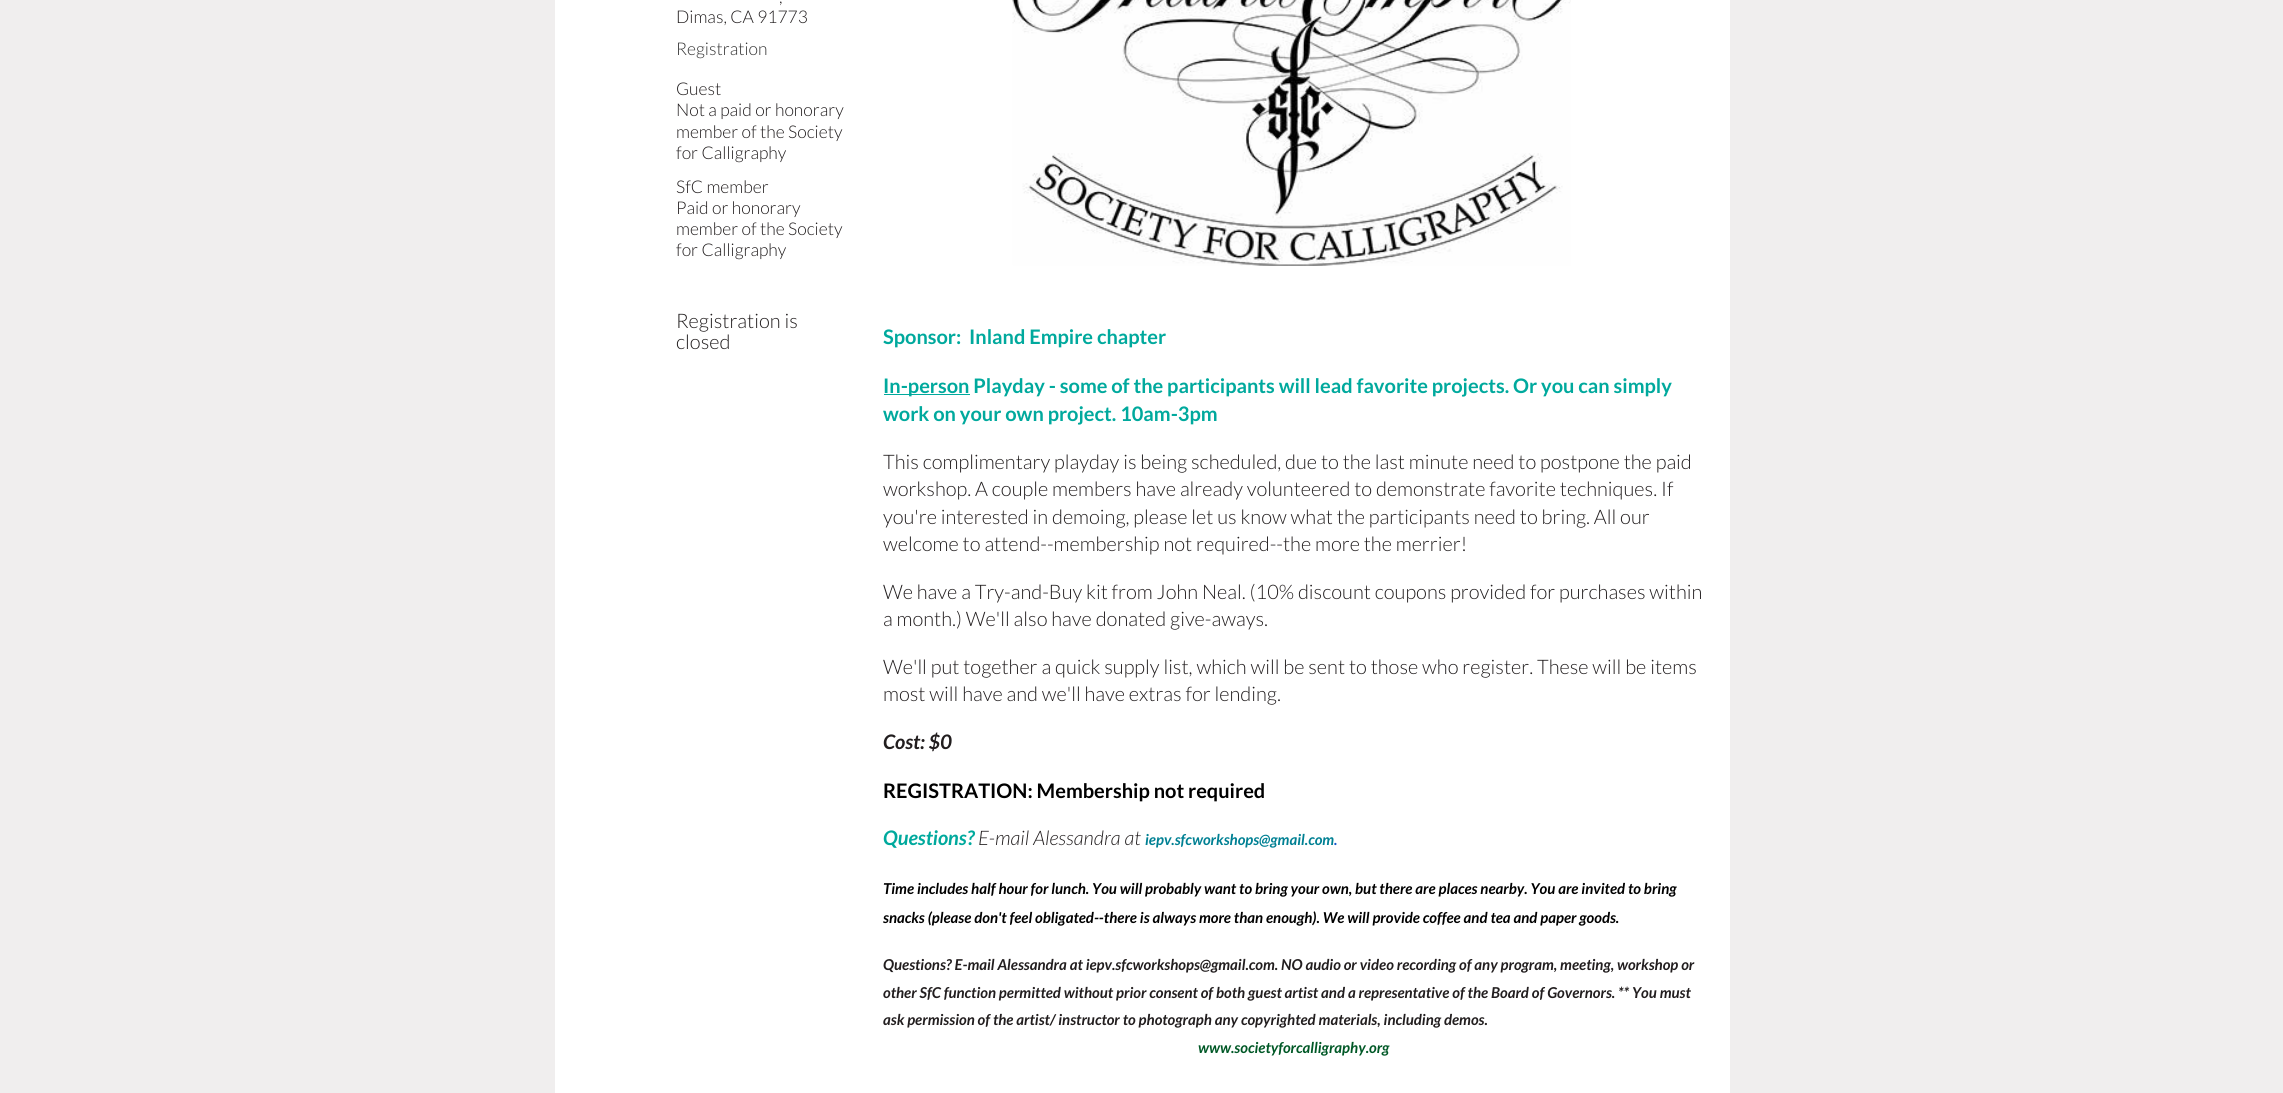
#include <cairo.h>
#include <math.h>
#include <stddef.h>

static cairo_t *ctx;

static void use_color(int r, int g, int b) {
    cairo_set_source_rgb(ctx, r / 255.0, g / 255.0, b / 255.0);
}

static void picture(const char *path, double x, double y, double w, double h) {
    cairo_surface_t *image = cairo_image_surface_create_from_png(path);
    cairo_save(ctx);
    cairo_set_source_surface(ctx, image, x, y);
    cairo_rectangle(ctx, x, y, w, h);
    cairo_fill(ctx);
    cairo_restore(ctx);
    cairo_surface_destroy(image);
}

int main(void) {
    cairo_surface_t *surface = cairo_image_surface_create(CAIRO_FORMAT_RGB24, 2283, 1093);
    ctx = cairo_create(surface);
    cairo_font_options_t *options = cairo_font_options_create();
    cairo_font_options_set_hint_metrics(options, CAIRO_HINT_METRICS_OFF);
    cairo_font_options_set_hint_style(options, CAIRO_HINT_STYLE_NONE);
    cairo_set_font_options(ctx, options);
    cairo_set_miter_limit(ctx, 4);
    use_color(240, 238, 238);
    cairo_paint(ctx);
    use_color(255, 255, 255);
    cairo_rectangle(ctx, 555, 0, 1175, 1093);
    cairo_fill(ctx);
    cairo_select_font_face(ctx, "Lato Light", CAIRO_FONT_SLANT_NORMAL, CAIRO_FONT_WEIGHT_NORMAL);
    cairo_set_font_size(ctx, 17.5);
    use_color(34, 30, 31);
    cairo_move_to(ctx, 779, 3);
    cairo_show_text(ctx, ",");
    cairo_move_to(ctx, 676, 23);
    cairo_show_text(ctx, "Dimas, CA 91773");
    use_color(51, 51, 51);
    cairo_move_to(ctx, 676, 55);
    cairo_show_text(ctx, "Registration");
    use_color(34, 30, 31);
    cairo_move_to(ctx, 676, 95);
    cairo_show_text(ctx, "Guest");
    cairo_move_to(ctx, 676, 116);
    cairo_show_text(ctx, "Not a paid or honorary");
    cairo_move_to(ctx, 676, 138);
    cairo_show_text(ctx, "member of the Society");
    cairo_move_to(ctx, 676, 159);
    cairo_show_text(ctx, "for Calligraphy");
    cairo_move_to(ctx, 676, 193);
    cairo_show_text(ctx, "SfC member");
    cairo_move_to(ctx, 676, 214);
    cairo_show_text(ctx, "Paid or honorary");
    cairo_move_to(ctx, 676, 235);
    cairo_show_text(ctx, "member of the Society");
    cairo_move_to(ctx, 676, 256);
    cairo_show_text(ctx, "for Calligraphy");
    cairo_set_font_size(ctx, 20);
    cairo_move_to(ctx, 676, 328);
    cairo_show_text(ctx, "Registration is");
    cairo_move_to(ctx, 676, 349);
    cairo_show_text(ctx, "closed");
    picture("img1.png", 1012, 0, 559, 266);
    cairo_select_font_face(ctx, "Lato", CAIRO_FONT_SLANT_NORMAL, CAIRO_FONT_WEIGHT_BOLD);
    use_color(0, 169, 157);
    cairo_move_to(ctx, 883, 344);
    cairo_show_text(ctx, "Sponsor:  Inland Empire chapter");
    cairo_rectangle(ctx, 884, 394, 86, 1);
    cairo_fill(ctx);
    cairo_move_to(ctx, 883, 393);
    cairo_show_text(ctx, "In-person Playday - some of the participants will lead favorite projects. Or you can simply");
    cairo_move_to(ctx, 883, 421);
    cairo_show_text(ctx, "work on your own project. 10am-3pm");
    cairo_select_font_face(ctx, "Lato Light", CAIRO_FONT_SLANT_NORMAL, CAIRO_FONT_WEIGHT_NORMAL);
    use_color(34, 30, 31);
    cairo_move_to(ctx, 883, 469);
    cairo_show_text(ctx, "This complimentary playday is being scheduled, due to the last minute need to postpone the paid");
    cairo_move_to(ctx, 883, 496);
    cairo_show_text(ctx, "workshop. A couple members have already volunteered to demonstrate favorite techniques. If");
    cairo_move_to(ctx, 883, 524);
    cairo_show_text(ctx, "you're interested in demoing, please let us know what the participants need to bring. All our");
    cairo_move_to(ctx, 883, 551);
    cairo_show_text(ctx, "welcome to attend--membership not required--the more the merrier!");
    cairo_move_to(ctx, 883, 599);
    cairo_show_text(ctx, "We have a Try-and-Buy kit from John Neal. (10% discount coupons provided for purchases within");
    cairo_move_to(ctx, 883, 626);
    cairo_show_text(ctx, "a month.) We'll also have donated give-aways.");
    cairo_move_to(ctx, 883, 674);
    cairo_show_text(ctx, "We'll put together a quick supply list, which will be sent to those who register. These will be items");
    cairo_move_to(ctx, 883, 701);
    cairo_show_text(ctx, "most will have and we'll have extras for lending.");
    cairo_select_font_face(ctx, "Lato", CAIRO_FONT_SLANT_ITALIC, CAIRO_FONT_WEIGHT_BOLD);
    cairo_move_to(ctx, 883, 749);
    cairo_show_text(ctx, "Cost: $0");
    cairo_select_font_face(ctx, "Lato", CAIRO_FONT_SLANT_NORMAL, CAIRO_FONT_WEIGHT_BOLD);
    use_color(0, 0, 0);
    cairo_move_to(ctx, 883, 798);
    cairo_show_text(ctx, "REGISTRATION: Membership not required");
    cairo_select_font_face(ctx, "Lato", CAIRO_FONT_SLANT_ITALIC, CAIRO_FONT_WEIGHT_BOLD);
    use_color(0, 169, 157);
    cairo_move_to(ctx, 883, 845);
    cairo_show_text(ctx, "Questions?");
    cairo_select_font_face(ctx, "Lato Light", CAIRO_FONT_SLANT_ITALIC, CAIRO_FONT_WEIGHT_NORMAL);
    use_color(34, 30, 31);
    cairo_move_to(ctx, 978, 845);
    cairo_show_text(ctx, "E-mail Alessandra at");
    cairo_select_font_face(ctx, "Lato", CAIRO_FONT_SLANT_ITALIC, CAIRO_FONT_WEIGHT_BOLD);
    cairo_set_font_size(ctx, 15);
    use_color(0, 128, 147);
    cairo_move_to(ctx, 1145, 845);
    cairo_show_text(ctx, "iepv.sfcworkshops@gmail.com");
    use_color(17, 85, 204);
    cairo_move_to(ctx, 1334, 845);
    cairo_show_text(ctx, ".");
    use_color(0, 0, 0);
    cairo_move_to(ctx, 883, 894);
    cairo_show_text(ctx, "Time includes half hour for lunch. You will probably want to bring your own, but there are places nearby. You are invited to bring");
    cairo_move_to(ctx, 883, 923);
    cairo_show_text(ctx, "snacks (please don't feel obligated--there is always more than enough). We will provide coffee and tea and paper goods.");
    use_color(34, 30, 31);
    cairo_move_to(ctx, 883, 970);
    cairo_show_text(ctx, "Questions? E-mail Alessandra at iepv.sfcworkshops@gmail.com. NO audio or video recording of any program, meeting, workshop or");
    cairo_move_to(ctx, 883, 998);
    cairo_show_text(ctx, "other SfC function permitted without prior consent of both guest artist and a representative of the Board of Governors. ** You must");
    cairo_move_to(ctx, 883, 1025);
    cairo_show_text(ctx, "ask permission of the artist/ instructor to photograph any copyrighted materials, including demos.");
    use_color(0, 88, 38);
    cairo_move_to(ctx, 1198, 1053);
    cairo_show_text(ctx, "www.societyforcalligraphy.org");
    cairo_surface_write_to_png(surface, "result.png");
    cairo_font_options_destroy(options);
    cairo_destroy(ctx);
    cairo_surface_destroy(surface);
    return 0;
}
